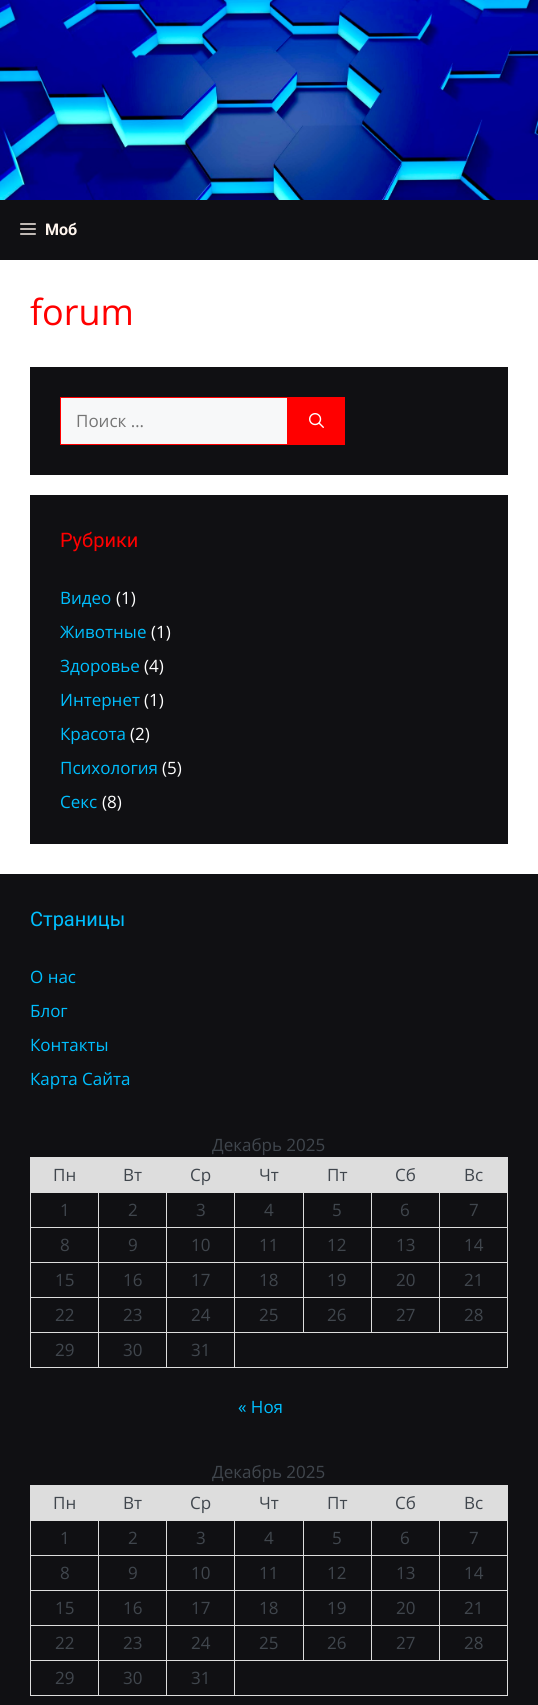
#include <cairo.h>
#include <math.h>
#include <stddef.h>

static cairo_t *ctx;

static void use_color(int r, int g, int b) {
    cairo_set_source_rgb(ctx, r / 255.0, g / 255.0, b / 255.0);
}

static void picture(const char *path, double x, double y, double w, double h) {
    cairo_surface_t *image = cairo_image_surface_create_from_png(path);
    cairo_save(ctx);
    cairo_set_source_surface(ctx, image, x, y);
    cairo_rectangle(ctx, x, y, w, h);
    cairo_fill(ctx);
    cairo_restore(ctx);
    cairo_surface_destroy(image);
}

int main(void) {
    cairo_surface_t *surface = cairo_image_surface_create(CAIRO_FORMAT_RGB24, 538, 1705);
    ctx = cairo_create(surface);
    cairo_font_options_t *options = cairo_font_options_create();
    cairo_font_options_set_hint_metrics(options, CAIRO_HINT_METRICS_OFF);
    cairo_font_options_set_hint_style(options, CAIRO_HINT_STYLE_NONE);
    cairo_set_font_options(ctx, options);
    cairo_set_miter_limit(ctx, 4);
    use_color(16, 16, 19);
    cairo_paint(ctx);
    picture("img1.png", 0, 0, 538, 200);
    picture("img2.png", 20, 223, 16, 12);
    cairo_select_font_face(ctx, "Roboto", CAIRO_FONT_SLANT_NORMAL, CAIRO_FONT_WEIGHT_BOLD);
    cairo_set_font_size(ctx, 16);
    use_color(255, 245, 238);
    cairo_move_to(ctx, 45, 235);
    cairo_show_text(ctx, "Моб");
    use_color(255, 255, 255);
    cairo_rectangle(ctx, 0, 260, 538, 614);
    cairo_fill(ctx);
    cairo_select_font_face(ctx, "Open Sans", CAIRO_FONT_SLANT_NORMAL, CAIRO_FONT_WEIGHT_NORMAL);
    cairo_set_font_size(ctx, 36);
    use_color(255, 0, 0);
    cairo_move_to(ctx, 30, 325);
    cairo_show_text(ctx, "forum");
    use_color(16, 16, 19);
    cairo_rectangle(ctx, 30, 367, 478, 108);
    cairo_fill(ctx);
    use_color(247, 248, 249);
    cairo_rectangle(ctx, 60.5, 397.5, 227, 47);
    cairo_fill_preserve(ctx);
    use_color(255, 0, 0);
    cairo_set_line_width(ctx, 1);
    cairo_stroke(ctx);
    cairo_set_font_size(ctx, 17);
    use_color(117, 117, 117);
    cairo_move_to(ctx, 76, 427);
    cairo_show_text(ctx, "Поиск …");
    use_color(255, 0, 0);
    cairo_rectangle(ctx, 288, 397, 57, 48);
    cairo_fill(ctx);
    picture("img3.png", 309, 413, 15, 15);
    use_color(16, 16, 19);
    cairo_rectangle(ctx, 30, 495, 478, 349);
    cairo_fill(ctx);
    cairo_select_font_face(ctx, "Roboto", CAIRO_FONT_SLANT_NORMAL, CAIRO_FONT_WEIGHT_NORMAL);
    cairo_set_font_size(ctx, 20);
    use_color(255, 0, 0);
    cairo_move_to(ctx, 60, 547);
    cairo_show_text(ctx, "Рубрики");
    cairo_select_font_face(ctx, "Open Sans", CAIRO_FONT_SLANT_NORMAL, CAIRO_FONT_WEIGHT_NORMAL);
    cairo_set_font_size(ctx, 17);
    use_color(0, 191, 255);
    cairo_move_to(ctx, 60, 604);
    cairo_show_text(ctx, "Видео");
    use_color(255, 255, 255);
    cairo_move_to(ctx, 116, 604);
    cairo_show_text(ctx, "(1)");
    use_color(0, 191, 255);
    cairo_move_to(ctx, 60, 638);
    cairo_show_text(ctx, "Животные");
    use_color(255, 255, 255);
    cairo_move_to(ctx, 151, 638);
    cairo_show_text(ctx, "(1)");
    use_color(0, 191, 255);
    cairo_move_to(ctx, 60, 672);
    cairo_show_text(ctx, "Здоровье");
    use_color(255, 255, 255);
    cairo_move_to(ctx, 144, 672);
    cairo_show_text(ctx, "(4)");
    use_color(0, 191, 255);
    cairo_move_to(ctx, 60, 706);
    cairo_show_text(ctx, "Интернет");
    use_color(255, 255, 255);
    cairo_move_to(ctx, 144, 706);
    cairo_show_text(ctx, "(1)");
    use_color(0, 191, 255);
    cairo_move_to(ctx, 60, 740);
    cairo_show_text(ctx, "Красота");
    use_color(255, 255, 255);
    cairo_move_to(ctx, 130, 740);
    cairo_show_text(ctx, "(2)");
    use_color(0, 191, 255);
    cairo_move_to(ctx, 60, 774);
    cairo_show_text(ctx, "Психология");
    use_color(255, 255, 255);
    cairo_move_to(ctx, 162, 774);
    cairo_show_text(ctx, "(5)");
    use_color(0, 191, 255);
    cairo_move_to(ctx, 60, 808);
    cairo_show_text(ctx, "Секс");
    use_color(255, 255, 255);
    cairo_move_to(ctx, 102, 808);
    cairo_show_text(ctx, "(8)");
    cairo_select_font_face(ctx, "Roboto", CAIRO_FONT_SLANT_NORMAL, CAIRO_FONT_WEIGHT_NORMAL);
    cairo_set_font_size(ctx, 20);
    use_color(0, 191, 255);
    cairo_move_to(ctx, 30, 926);
    cairo_show_text(ctx, "Страницы");
    cairo_select_font_face(ctx, "Open Sans", CAIRO_FONT_SLANT_NORMAL, CAIRO_FONT_WEIGHT_NORMAL);
    cairo_set_font_size(ctx, 17);
    cairo_move_to(ctx, 30, 983);
    cairo_show_text(ctx, "О нас");
    cairo_move_to(ctx, 30, 1017);
    cairo_show_text(ctx, "Блог");
    cairo_move_to(ctx, 30, 1051);
    cairo_show_text(ctx, "Контакты");
    cairo_move_to(ctx, 30, 1085);
    cairo_show_text(ctx, "Карта Сайта");
    use_color(64, 70, 77);
    cairo_move_to(ctx, 212, 1151);
    cairo_show_text(ctx, "Декабрь 2025");
    use_color(221, 221, 221);
    cairo_rectangle(ctx, 31, 1158, 68, 34);
    cairo_fill(ctx);
    cairo_rectangle(ctx, 30, 1157, 478, 1);
    cairo_fill(ctx);
    cairo_rectangle(ctx, 439, 1227, 69, 1);
    cairo_fill(ctx);
    cairo_rectangle(ctx, 439, 1262, 69, 1);
    cairo_fill(ctx);
    cairo_rectangle(ctx, 439, 1297, 69, 1);
    cairo_fill(ctx);
    cairo_rectangle(ctx, 234, 1332, 274, 1);
    cairo_fill(ctx);
    cairo_rectangle(ctx, 439, 1297, 1, 36);
    cairo_fill(ctx);
    cairo_rectangle(ctx, 371, 1297, 69, 1);
    cairo_fill(ctx);
    cairo_rectangle(ctx, 439, 1262, 1, 36);
    cairo_fill(ctx);
    cairo_rectangle(ctx, 371, 1262, 69, 1);
    cairo_fill(ctx);
    cairo_rectangle(ctx, 439, 1227, 1, 36);
    cairo_fill(ctx);
    cairo_rectangle(ctx, 371, 1227, 69, 1);
    cairo_fill(ctx);
    cairo_rectangle(ctx, 371, 1297, 1, 36);
    cairo_fill(ctx);
    cairo_rectangle(ctx, 303, 1297, 69, 1);
    cairo_fill(ctx);
    cairo_rectangle(ctx, 371, 1262, 1, 36);
    cairo_fill(ctx);
    cairo_rectangle(ctx, 303, 1262, 69, 1);
    cairo_fill(ctx);
    cairo_rectangle(ctx, 371, 1227, 1, 36);
    cairo_fill(ctx);
    cairo_rectangle(ctx, 303, 1227, 69, 1);
    cairo_fill(ctx);
    cairo_rectangle(ctx, 303, 1297, 1, 36);
    cairo_fill(ctx);
    cairo_rectangle(ctx, 234, 1297, 70, 1);
    cairo_fill(ctx);
    cairo_rectangle(ctx, 303, 1262, 1, 36);
    cairo_fill(ctx);
    cairo_rectangle(ctx, 234, 1262, 70, 1);
    cairo_fill(ctx);
    cairo_rectangle(ctx, 303, 1227, 1, 36);
    cairo_fill(ctx);
    cairo_rectangle(ctx, 234, 1227, 70, 1);
    cairo_fill(ctx);
    cairo_rectangle(ctx, 507, 1332, 1, 36);
    cairo_fill(ctx);
    cairo_rectangle(ctx, 234, 1367, 274, 1);
    cairo_fill(ctx);
    cairo_rectangle(ctx, 234, 1332, 1, 36);
    cairo_fill(ctx);
    cairo_rectangle(ctx, 166, 1332, 69, 1);
    cairo_fill(ctx);
    cairo_rectangle(ctx, 234, 1297, 1, 36);
    cairo_fill(ctx);
    cairo_rectangle(ctx, 166, 1297, 69, 1);
    cairo_fill(ctx);
    cairo_rectangle(ctx, 234, 1262, 1, 36);
    cairo_fill(ctx);
    cairo_rectangle(ctx, 166, 1262, 69, 1);
    cairo_fill(ctx);
    cairo_rectangle(ctx, 234, 1227, 1, 36);
    cairo_fill(ctx);
    cairo_rectangle(ctx, 166, 1227, 69, 1);
    cairo_fill(ctx);
    cairo_rectangle(ctx, 166, 1367, 69, 1);
    cairo_fill(ctx);
    cairo_rectangle(ctx, 166, 1332, 1, 36);
    cairo_fill(ctx);
    cairo_rectangle(ctx, 98, 1332, 69, 1);
    cairo_fill(ctx);
    cairo_rectangle(ctx, 166, 1297, 1, 36);
    cairo_fill(ctx);
    cairo_rectangle(ctx, 98, 1297, 69, 1);
    cairo_fill(ctx);
    cairo_rectangle(ctx, 166, 1262, 1, 36);
    cairo_fill(ctx);
    cairo_rectangle(ctx, 98, 1262, 69, 1);
    cairo_fill(ctx);
    cairo_rectangle(ctx, 166, 1227, 1, 36);
    cairo_fill(ctx);
    cairo_rectangle(ctx, 98, 1227, 69, 1);
    cairo_fill(ctx);
    cairo_rectangle(ctx, 98, 1367, 69, 1);
    cairo_fill(ctx);
    cairo_rectangle(ctx, 98, 1332, 1, 36);
    cairo_fill(ctx);
    cairo_rectangle(ctx, 30, 1332, 69, 1);
    cairo_fill(ctx);
    cairo_rectangle(ctx, 98, 1297, 1, 36);
    cairo_fill(ctx);
    cairo_rectangle(ctx, 30, 1297, 69, 1);
    cairo_fill(ctx);
    cairo_rectangle(ctx, 98, 1262, 1, 36);
    cairo_fill(ctx);
    cairo_rectangle(ctx, 30, 1262, 69, 1);
    cairo_fill(ctx);
    cairo_rectangle(ctx, 98, 1227, 1, 36);
    cairo_fill(ctx);
    cairo_rectangle(ctx, 30, 1227, 69, 1);
    cairo_fill(ctx);
    cairo_rectangle(ctx, 98, 1192, 1, 36);
    cairo_fill(ctx);
    cairo_rectangle(ctx, 30, 1192, 69, 1);
    cairo_fill(ctx);
    cairo_rectangle(ctx, 30, 1367, 69, 1);
    cairo_fill(ctx);
    cairo_rectangle(ctx, 30, 1332, 1, 36);
    cairo_fill(ctx);
    cairo_rectangle(ctx, 30, 1297, 1, 36);
    cairo_fill(ctx);
    cairo_rectangle(ctx, 30, 1262, 1, 36);
    cairo_fill(ctx);
    cairo_rectangle(ctx, 30, 1227, 1, 36);
    cairo_fill(ctx);
    cairo_rectangle(ctx, 30, 1192, 1, 36);
    cairo_fill(ctx);
    cairo_rectangle(ctx, 30, 1157, 1, 36);
    cairo_fill(ctx);
    use_color(64, 70, 77);
    cairo_move_to(ctx, 53, 1181);
    cairo_show_text(ctx, "Пн");
    use_color(221, 221, 221);
    cairo_rectangle(ctx, 99, 1158, 409, 35);
    cairo_fill(ctx);
    use_color(64, 70, 77);
    cairo_move_to(ctx, 123, 1181);
    cairo_show_text(ctx, "Вт");
    cairo_move_to(ctx, 190, 1181);
    cairo_show_text(ctx, "Ср");
    cairo_move_to(ctx, 259, 1181);
    cairo_show_text(ctx, "Чт");
    cairo_move_to(ctx, 327, 1181);
    cairo_show_text(ctx, "Пт");
    cairo_move_to(ctx, 395, 1181);
    cairo_show_text(ctx, "Сб");
    cairo_move_to(ctx, 464, 1181);
    cairo_show_text(ctx, "Вс");
    cairo_move_to(ctx, 60, 1216);
    cairo_show_text(ctx, "1");
    cairo_move_to(ctx, 128, 1216);
    cairo_show_text(ctx, "2");
    use_color(221, 221, 221);
    cairo_rectangle(ctx, 166, 1192, 1, 36);
    cairo_fill(ctx);
    use_color(64, 70, 77);
    cairo_move_to(ctx, 196, 1216);
    cairo_show_text(ctx, "3");
    use_color(221, 221, 221);
    cairo_rectangle(ctx, 234, 1192, 1, 36);
    cairo_fill(ctx);
    use_color(64, 70, 77);
    cairo_move_to(ctx, 264, 1216);
    cairo_show_text(ctx, "4");
    use_color(221, 221, 221);
    cairo_rectangle(ctx, 303, 1192, 1, 36);
    cairo_fill(ctx);
    use_color(64, 70, 77);
    cairo_move_to(ctx, 332, 1216);
    cairo_show_text(ctx, "5");
    use_color(221, 221, 221);
    cairo_rectangle(ctx, 371, 1192, 1, 36);
    cairo_fill(ctx);
    use_color(64, 70, 77);
    cairo_move_to(ctx, 400, 1216);
    cairo_show_text(ctx, "6");
    use_color(221, 221, 221);
    cairo_rectangle(ctx, 439, 1192, 1, 36);
    cairo_fill(ctx);
    use_color(64, 70, 77);
    cairo_move_to(ctx, 469, 1216);
    cairo_show_text(ctx, "7");
    cairo_move_to(ctx, 60, 1251);
    cairo_show_text(ctx, "8");
    cairo_move_to(ctx, 128, 1251);
    cairo_show_text(ctx, "9");
    cairo_move_to(ctx, 191, 1251);
    cairo_show_text(ctx, "10");
    cairo_move_to(ctx, 259, 1251);
    cairo_show_text(ctx, "11");
    cairo_move_to(ctx, 327, 1251);
    cairo_show_text(ctx, "12");
    cairo_move_to(ctx, 396, 1251);
    cairo_show_text(ctx, "13");
    use_color(221, 221, 221);
    cairo_rectangle(ctx, 507, 1297, 1, 36);
    cairo_fill(ctx);
    cairo_rectangle(ctx, 507, 1262, 1, 36);
    cairo_fill(ctx);
    cairo_rectangle(ctx, 507, 1192, 1, 71);
    cairo_fill(ctx);
    use_color(64, 70, 77);
    cairo_move_to(ctx, 464, 1251);
    cairo_show_text(ctx, "14");
    cairo_move_to(ctx, 55, 1286);
    cairo_show_text(ctx, "15");
    cairo_move_to(ctx, 123, 1286);
    cairo_show_text(ctx, "16");
    cairo_move_to(ctx, 191, 1286);
    cairo_show_text(ctx, "17");
    cairo_move_to(ctx, 259, 1286);
    cairo_show_text(ctx, "18");
    cairo_move_to(ctx, 327, 1286);
    cairo_show_text(ctx, "19");
    cairo_move_to(ctx, 396, 1286);
    cairo_show_text(ctx, "20");
    cairo_move_to(ctx, 464, 1286);
    cairo_show_text(ctx, "21");
    cairo_move_to(ctx, 55, 1321);
    cairo_show_text(ctx, "22");
    cairo_move_to(ctx, 123, 1321);
    cairo_show_text(ctx, "23");
    cairo_move_to(ctx, 191, 1321);
    cairo_show_text(ctx, "24");
    cairo_move_to(ctx, 259, 1321);
    cairo_show_text(ctx, "25");
    cairo_move_to(ctx, 327, 1321);
    cairo_show_text(ctx, "26");
    cairo_move_to(ctx, 396, 1321);
    cairo_show_text(ctx, "27");
    cairo_move_to(ctx, 464, 1321);
    cairo_show_text(ctx, "28");
    cairo_move_to(ctx, 55, 1356);
    cairo_show_text(ctx, "29");
    cairo_move_to(ctx, 123, 1356);
    cairo_show_text(ctx, "30");
    cairo_move_to(ctx, 191, 1356);
    cairo_show_text(ctx, "31");
    use_color(0, 191, 255);
    cairo_move_to(ctx, 238, 1413);
    cairo_show_text(ctx, "« Ноя");
    use_color(64, 70, 77);
    cairo_move_to(ctx, 212, 1478);
    cairo_show_text(ctx, "Декабрь 2025");
    use_color(221, 221, 221);
    cairo_rectangle(ctx, 31, 1486, 68, 34);
    cairo_fill(ctx);
    cairo_rectangle(ctx, 30, 1485, 69, 1);
    cairo_fill(ctx);
    cairo_rectangle(ctx, 439, 1520, 69, 1);
    cairo_fill(ctx);
    cairo_rectangle(ctx, 439, 1555, 69, 1);
    cairo_fill(ctx);
    cairo_rectangle(ctx, 439, 1590, 69, 1);
    cairo_fill(ctx);
    cairo_rectangle(ctx, 439, 1625, 69, 1);
    cairo_fill(ctx);
    cairo_rectangle(ctx, 234, 1660, 274, 1);
    cairo_fill(ctx);
    cairo_rectangle(ctx, 439, 1625, 1, 36);
    cairo_fill(ctx);
    cairo_rectangle(ctx, 371, 1625, 69, 1);
    cairo_fill(ctx);
    cairo_rectangle(ctx, 439, 1590, 1, 36);
    cairo_fill(ctx);
    cairo_rectangle(ctx, 371, 1590, 69, 1);
    cairo_fill(ctx);
    cairo_rectangle(ctx, 439, 1555, 1, 36);
    cairo_fill(ctx);
    cairo_rectangle(ctx, 371, 1555, 69, 1);
    cairo_fill(ctx);
    cairo_rectangle(ctx, 439, 1520, 1, 36);
    cairo_fill(ctx);
    cairo_rectangle(ctx, 371, 1520, 69, 1);
    cairo_fill(ctx);
    cairo_rectangle(ctx, 371, 1625, 1, 36);
    cairo_fill(ctx);
    cairo_rectangle(ctx, 303, 1625, 69, 1);
    cairo_fill(ctx);
    cairo_rectangle(ctx, 371, 1590, 1, 36);
    cairo_fill(ctx);
    cairo_rectangle(ctx, 303, 1590, 69, 1);
    cairo_fill(ctx);
    cairo_rectangle(ctx, 371, 1555, 1, 36);
    cairo_fill(ctx);
    cairo_rectangle(ctx, 303, 1555, 69, 1);
    cairo_fill(ctx);
    cairo_rectangle(ctx, 371, 1520, 1, 36);
    cairo_fill(ctx);
    cairo_rectangle(ctx, 303, 1520, 69, 1);
    cairo_fill(ctx);
    cairo_rectangle(ctx, 303, 1625, 1, 36);
    cairo_fill(ctx);
    cairo_rectangle(ctx, 234, 1625, 70, 1);
    cairo_fill(ctx);
    cairo_rectangle(ctx, 303, 1590, 1, 36);
    cairo_fill(ctx);
    cairo_rectangle(ctx, 234, 1590, 70, 1);
    cairo_fill(ctx);
    cairo_rectangle(ctx, 303, 1555, 1, 36);
    cairo_fill(ctx);
    cairo_rectangle(ctx, 234, 1555, 70, 1);
    cairo_fill(ctx);
    cairo_rectangle(ctx, 303, 1520, 1, 36);
    cairo_fill(ctx);
    cairo_rectangle(ctx, 234, 1520, 70, 1);
    cairo_fill(ctx);
    cairo_rectangle(ctx, 507, 1660, 1, 36);
    cairo_fill(ctx);
    cairo_rectangle(ctx, 234, 1695, 274, 1);
    cairo_fill(ctx);
    cairo_rectangle(ctx, 234, 1660, 1, 36);
    cairo_fill(ctx);
    cairo_rectangle(ctx, 166, 1660, 69, 1);
    cairo_fill(ctx);
    cairo_rectangle(ctx, 234, 1625, 1, 36);
    cairo_fill(ctx);
    cairo_rectangle(ctx, 166, 1625, 69, 1);
    cairo_fill(ctx);
    cairo_rectangle(ctx, 234, 1590, 1, 36);
    cairo_fill(ctx);
    cairo_rectangle(ctx, 166, 1590, 69, 1);
    cairo_fill(ctx);
    cairo_rectangle(ctx, 234, 1555, 1, 36);
    cairo_fill(ctx);
    cairo_rectangle(ctx, 166, 1555, 69, 1);
    cairo_fill(ctx);
    cairo_rectangle(ctx, 234, 1520, 1, 36);
    cairo_fill(ctx);
    cairo_rectangle(ctx, 166, 1520, 69, 1);
    cairo_fill(ctx);
    cairo_rectangle(ctx, 166, 1695, 69, 1);
    cairo_fill(ctx);
    cairo_rectangle(ctx, 166, 1660, 1, 36);
    cairo_fill(ctx);
    cairo_rectangle(ctx, 98, 1660, 69, 1);
    cairo_fill(ctx);
    cairo_rectangle(ctx, 166, 1625, 1, 36);
    cairo_fill(ctx);
    cairo_rectangle(ctx, 98, 1625, 69, 1);
    cairo_fill(ctx);
    cairo_rectangle(ctx, 166, 1590, 1, 36);
    cairo_fill(ctx);
    cairo_rectangle(ctx, 98, 1590, 69, 1);
    cairo_fill(ctx);
    cairo_rectangle(ctx, 166, 1555, 1, 36);
    cairo_fill(ctx);
    cairo_rectangle(ctx, 98, 1555, 69, 1);
    cairo_fill(ctx);
    cairo_rectangle(ctx, 166, 1520, 1, 36);
    cairo_fill(ctx);
    cairo_rectangle(ctx, 98, 1520, 69, 1);
    cairo_fill(ctx);
    cairo_rectangle(ctx, 98, 1695, 69, 1);
    cairo_fill(ctx);
    cairo_rectangle(ctx, 98, 1660, 1, 36);
    cairo_fill(ctx);
    cairo_rectangle(ctx, 30, 1660, 69, 1);
    cairo_fill(ctx);
    cairo_rectangle(ctx, 98, 1625, 1, 36);
    cairo_fill(ctx);
    cairo_rectangle(ctx, 30, 1625, 69, 1);
    cairo_fill(ctx);
    cairo_rectangle(ctx, 98, 1590, 1, 36);
    cairo_fill(ctx);
    cairo_rectangle(ctx, 30, 1590, 69, 1);
    cairo_fill(ctx);
    cairo_rectangle(ctx, 98, 1555, 1, 36);
    cairo_fill(ctx);
    cairo_rectangle(ctx, 30, 1555, 69, 1);
    cairo_fill(ctx);
    cairo_rectangle(ctx, 98, 1520, 1, 36);
    cairo_fill(ctx);
    cairo_rectangle(ctx, 30, 1520, 69, 1);
    cairo_fill(ctx);
    cairo_rectangle(ctx, 30, 1695, 69, 1);
    cairo_fill(ctx);
    cairo_rectangle(ctx, 30, 1660, 1, 36);
    cairo_fill(ctx);
    cairo_rectangle(ctx, 30, 1625, 1, 36);
    cairo_fill(ctx);
    cairo_rectangle(ctx, 30, 1590, 1, 36);
    cairo_fill(ctx);
    cairo_rectangle(ctx, 30, 1555, 1, 36);
    cairo_fill(ctx);
    cairo_rectangle(ctx, 30, 1520, 1, 36);
    cairo_fill(ctx);
    cairo_rectangle(ctx, 30, 1485, 1, 36);
    cairo_fill(ctx);
    use_color(64, 70, 77);
    cairo_move_to(ctx, 53, 1509);
    cairo_show_text(ctx, "Пн");
    use_color(221, 221, 221);
    cairo_rectangle(ctx, 99, 1485, 409, 35);
    cairo_fill(ctx);
    use_color(64, 70, 77);
    cairo_move_to(ctx, 123, 1509);
    cairo_show_text(ctx, "Вт");
    cairo_move_to(ctx, 190, 1509);
    cairo_show_text(ctx, "Ср");
    cairo_move_to(ctx, 259, 1509);
    cairo_show_text(ctx, "Чт");
    cairo_move_to(ctx, 327, 1509);
    cairo_show_text(ctx, "Пт");
    cairo_move_to(ctx, 395, 1509);
    cairo_show_text(ctx, "Сб");
    cairo_move_to(ctx, 464, 1509);
    cairo_show_text(ctx, "Вс");
    cairo_move_to(ctx, 60, 1544);
    cairo_show_text(ctx, "1");
    cairo_move_to(ctx, 128, 1544);
    cairo_show_text(ctx, "2");
    cairo_move_to(ctx, 196, 1544);
    cairo_show_text(ctx, "3");
    cairo_move_to(ctx, 264, 1544);
    cairo_show_text(ctx, "4");
    cairo_move_to(ctx, 332, 1544);
    cairo_show_text(ctx, "5");
    cairo_move_to(ctx, 400, 1544);
    cairo_show_text(ctx, "6");
    use_color(221, 221, 221);
    cairo_rectangle(ctx, 507, 1625, 1, 36);
    cairo_fill(ctx);
    cairo_rectangle(ctx, 507, 1590, 1, 36);
    cairo_fill(ctx);
    cairo_rectangle(ctx, 507, 1555, 1, 36);
    cairo_fill(ctx);
    cairo_rectangle(ctx, 507, 1520, 1, 36);
    cairo_fill(ctx);
    use_color(64, 70, 77);
    cairo_move_to(ctx, 469, 1544);
    cairo_show_text(ctx, "7");
    cairo_move_to(ctx, 60, 1579);
    cairo_show_text(ctx, "8");
    cairo_move_to(ctx, 128, 1579);
    cairo_show_text(ctx, "9");
    cairo_move_to(ctx, 191, 1579);
    cairo_show_text(ctx, "10");
    cairo_move_to(ctx, 259, 1579);
    cairo_show_text(ctx, "11");
    cairo_move_to(ctx, 327, 1579);
    cairo_show_text(ctx, "12");
    cairo_move_to(ctx, 396, 1579);
    cairo_show_text(ctx, "13");
    cairo_move_to(ctx, 464, 1579);
    cairo_show_text(ctx, "14");
    cairo_move_to(ctx, 55, 1614);
    cairo_show_text(ctx, "15");
    cairo_move_to(ctx, 123, 1614);
    cairo_show_text(ctx, "16");
    cairo_move_to(ctx, 191, 1614);
    cairo_show_text(ctx, "17");
    cairo_move_to(ctx, 259, 1614);
    cairo_show_text(ctx, "18");
    cairo_move_to(ctx, 327, 1614);
    cairo_show_text(ctx, "19");
    cairo_move_to(ctx, 396, 1614);
    cairo_show_text(ctx, "20");
    cairo_move_to(ctx, 464, 1614);
    cairo_show_text(ctx, "21");
    cairo_move_to(ctx, 55, 1649);
    cairo_show_text(ctx, "22");
    cairo_move_to(ctx, 123, 1649);
    cairo_show_text(ctx, "23");
    cairo_move_to(ctx, 191, 1649);
    cairo_show_text(ctx, "24");
    cairo_move_to(ctx, 259, 1649);
    cairo_show_text(ctx, "25");
    cairo_move_to(ctx, 327, 1649);
    cairo_show_text(ctx, "26");
    cairo_move_to(ctx, 396, 1649);
    cairo_show_text(ctx, "27");
    cairo_move_to(ctx, 464, 1649);
    cairo_show_text(ctx, "28");
    cairo_move_to(ctx, 55, 1684);
    cairo_show_text(ctx, "29");
    cairo_move_to(ctx, 123, 1684);
    cairo_show_text(ctx, "30");
    cairo_move_to(ctx, 191, 1684);
    cairo_show_text(ctx, "31");
    cairo_surface_write_to_png(surface, "result.png");
    cairo_font_options_destroy(options);
    cairo_destroy(ctx);
    cairo_surface_destroy(surface);
    return 0;
}
